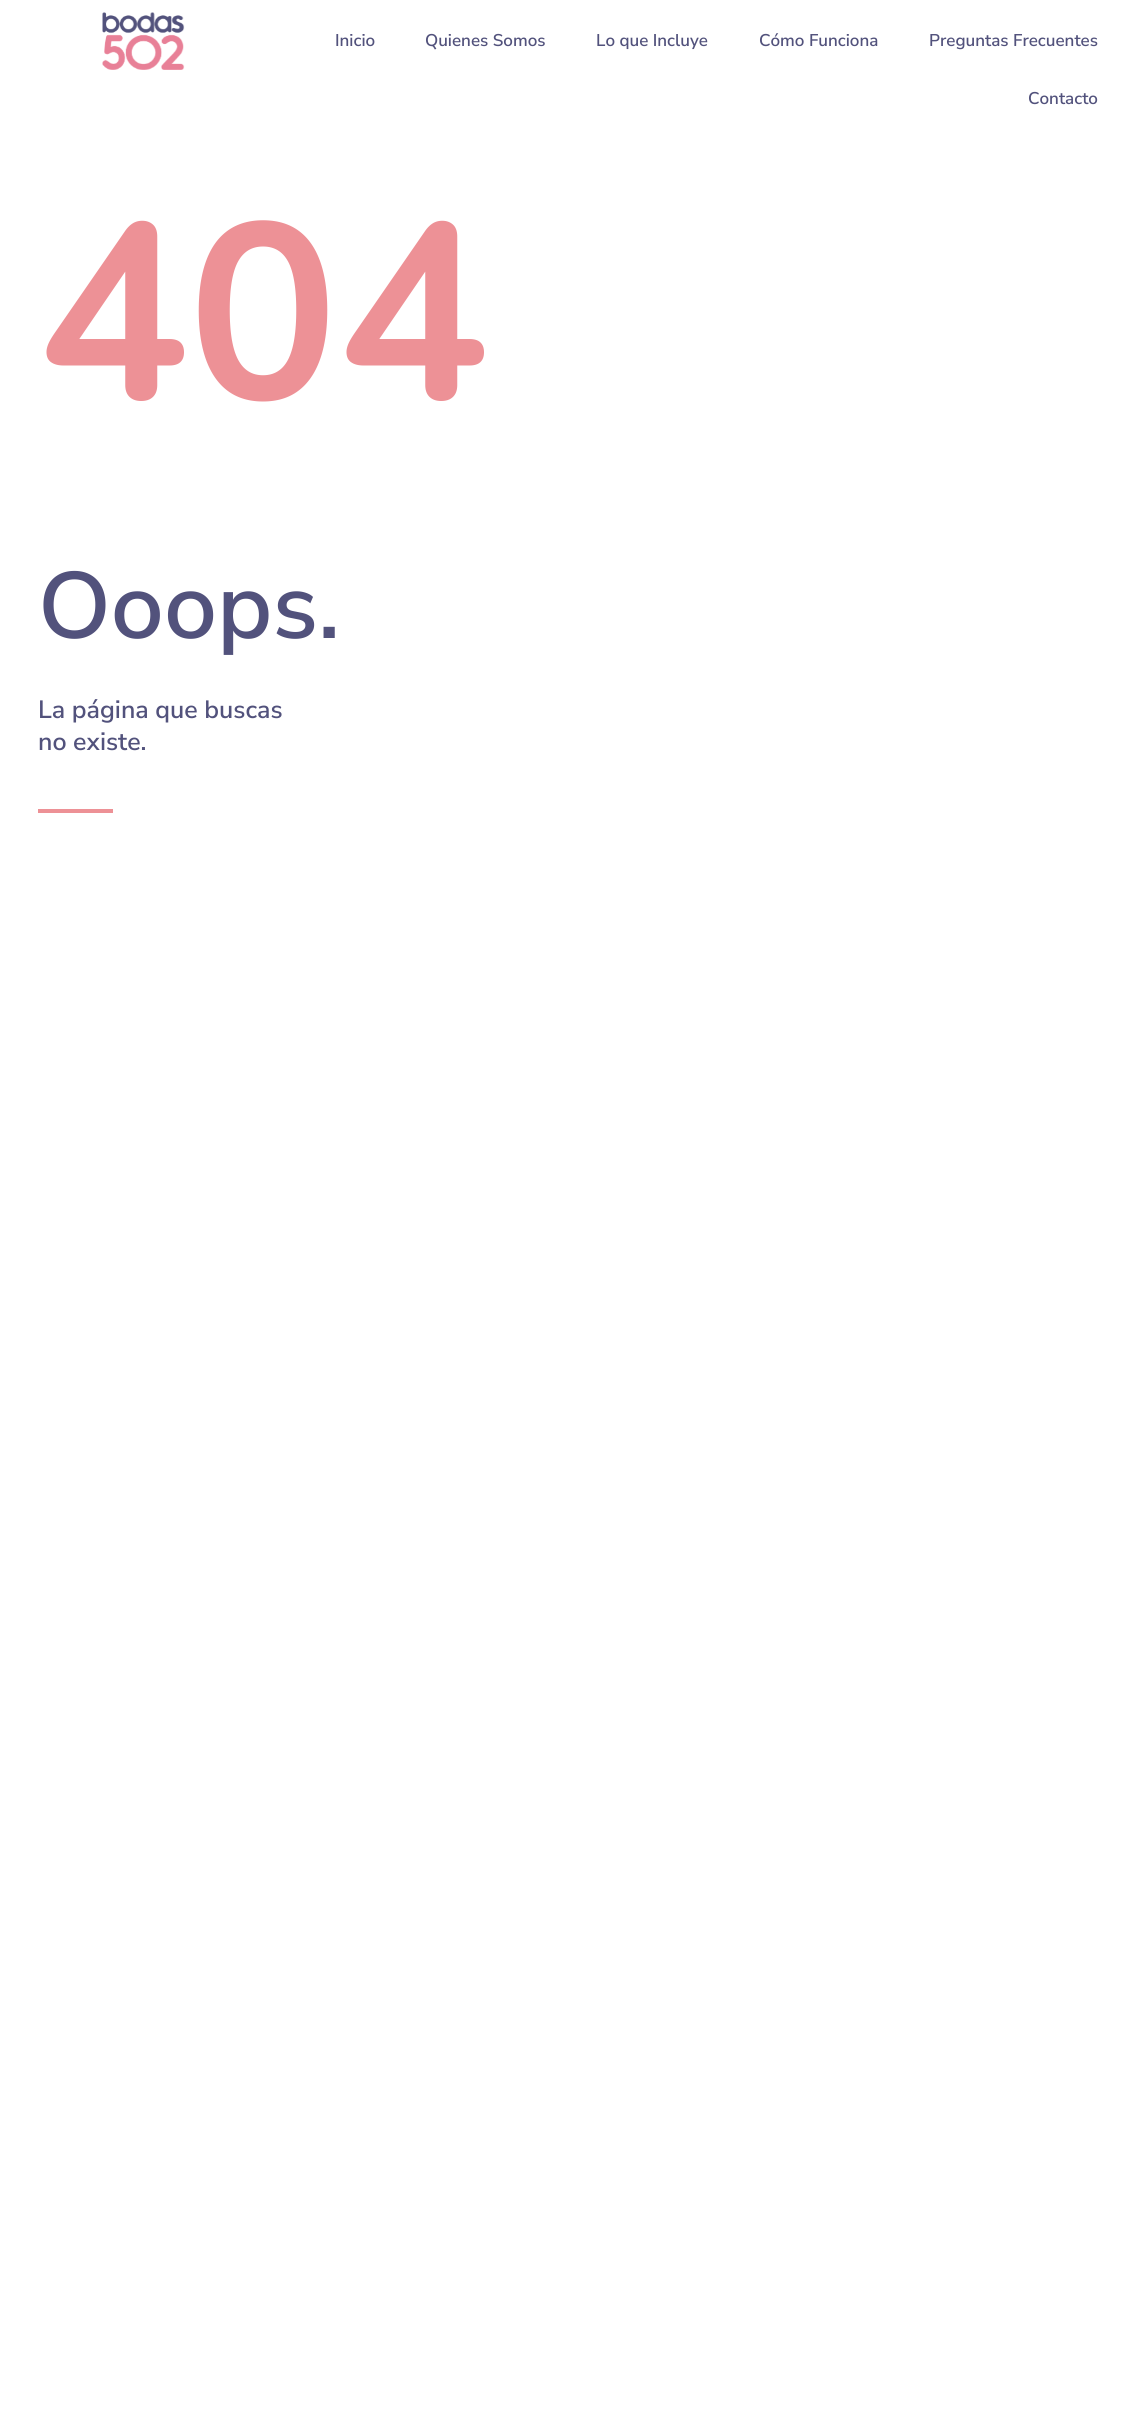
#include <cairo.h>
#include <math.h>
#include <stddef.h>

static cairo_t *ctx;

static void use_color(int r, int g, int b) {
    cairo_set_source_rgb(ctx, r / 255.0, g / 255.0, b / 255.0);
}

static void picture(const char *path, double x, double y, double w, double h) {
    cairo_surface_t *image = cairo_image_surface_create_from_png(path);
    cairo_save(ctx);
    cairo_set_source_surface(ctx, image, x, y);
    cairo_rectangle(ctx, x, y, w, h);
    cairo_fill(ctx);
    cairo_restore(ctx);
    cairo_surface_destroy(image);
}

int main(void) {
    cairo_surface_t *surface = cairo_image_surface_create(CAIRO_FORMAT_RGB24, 1140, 2426);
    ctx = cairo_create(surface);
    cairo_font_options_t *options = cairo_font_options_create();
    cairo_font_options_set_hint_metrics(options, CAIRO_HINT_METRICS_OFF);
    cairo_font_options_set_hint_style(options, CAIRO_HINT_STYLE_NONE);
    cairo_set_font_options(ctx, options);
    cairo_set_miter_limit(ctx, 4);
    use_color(255, 255, 255);
    cairo_paint(ctx);
    picture("img1.png", 102, 12, 83, 58);
    cairo_select_font_face(ctx, "Nunito Sans SemiBold", CAIRO_FONT_SLANT_NORMAL, CAIRO_FONT_WEIGHT_NORMAL);
    cairo_set_font_size(ctx, 17);
    use_color(82, 82, 124);
    cairo_move_to(ctx, 335, 46);
    cairo_show_text(ctx, "Inicio");
    cairo_move_to(ctx, 425, 46);
    cairo_show_text(ctx, "Quienes Somos");
    cairo_move_to(ctx, 596, 46);
    cairo_show_text(ctx, "Lo que Incluye");
    cairo_move_to(ctx, 759, 46);
    cairo_show_text(ctx, "Cómo Funciona");
    cairo_move_to(ctx, 929, 46);
    cairo_show_text(ctx, "Preguntas Frecuentes");
    cairo_move_to(ctx, 1028, 104);
    cairo_show_text(ctx, "Contacto");
    cairo_select_font_face(ctx, "Nunito", CAIRO_FONT_SLANT_NORMAL, CAIRO_FONT_WEIGHT_BOLD);
    cairo_set_font_size(ctx, 250);
    use_color(237, 145, 150);
    cairo_move_to(ctx, 38, 399);
    cairo_show_text(ctx, "404");
    cairo_select_font_face(ctx, "Nunito Sans SemiBold", CAIRO_FONT_SLANT_NORMAL, CAIRO_FONT_WEIGHT_NORMAL);
    cairo_set_font_size(ctx, 94);
    use_color(82, 82, 124);
    cairo_move_to(ctx, 38, 638);
    cairo_show_text(ctx, "Ooops.");
    cairo_set_font_size(ctx, 25);
    cairo_move_to(ctx, 38, 718);
    cairo_show_text(ctx, "La página que buscas");
    cairo_move_to(ctx, 38, 750);
    cairo_show_text(ctx, "no existe.");
    use_color(237, 145, 150);
    cairo_rectangle(ctx, 38, 809, 75, 4);
    cairo_fill(ctx);
    cairo_surface_write_to_png(surface, "result.png");
    cairo_font_options_destroy(options);
    cairo_destroy(ctx);
    cairo_surface_destroy(surface);
    return 0;
}
